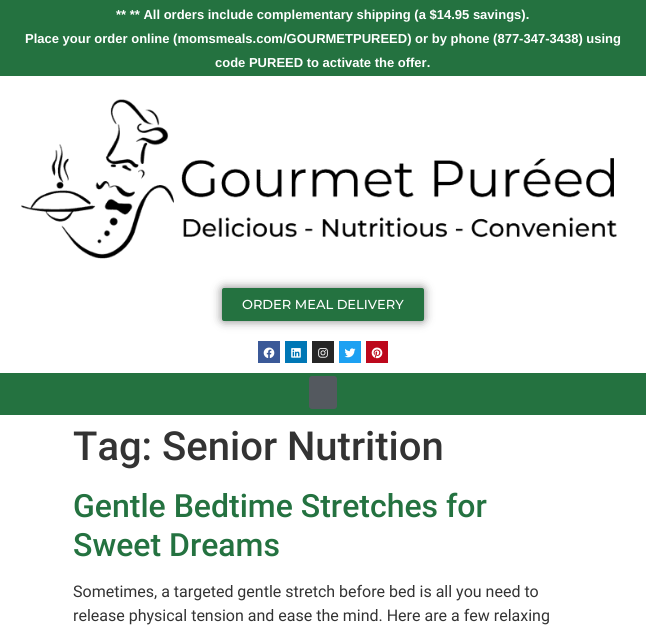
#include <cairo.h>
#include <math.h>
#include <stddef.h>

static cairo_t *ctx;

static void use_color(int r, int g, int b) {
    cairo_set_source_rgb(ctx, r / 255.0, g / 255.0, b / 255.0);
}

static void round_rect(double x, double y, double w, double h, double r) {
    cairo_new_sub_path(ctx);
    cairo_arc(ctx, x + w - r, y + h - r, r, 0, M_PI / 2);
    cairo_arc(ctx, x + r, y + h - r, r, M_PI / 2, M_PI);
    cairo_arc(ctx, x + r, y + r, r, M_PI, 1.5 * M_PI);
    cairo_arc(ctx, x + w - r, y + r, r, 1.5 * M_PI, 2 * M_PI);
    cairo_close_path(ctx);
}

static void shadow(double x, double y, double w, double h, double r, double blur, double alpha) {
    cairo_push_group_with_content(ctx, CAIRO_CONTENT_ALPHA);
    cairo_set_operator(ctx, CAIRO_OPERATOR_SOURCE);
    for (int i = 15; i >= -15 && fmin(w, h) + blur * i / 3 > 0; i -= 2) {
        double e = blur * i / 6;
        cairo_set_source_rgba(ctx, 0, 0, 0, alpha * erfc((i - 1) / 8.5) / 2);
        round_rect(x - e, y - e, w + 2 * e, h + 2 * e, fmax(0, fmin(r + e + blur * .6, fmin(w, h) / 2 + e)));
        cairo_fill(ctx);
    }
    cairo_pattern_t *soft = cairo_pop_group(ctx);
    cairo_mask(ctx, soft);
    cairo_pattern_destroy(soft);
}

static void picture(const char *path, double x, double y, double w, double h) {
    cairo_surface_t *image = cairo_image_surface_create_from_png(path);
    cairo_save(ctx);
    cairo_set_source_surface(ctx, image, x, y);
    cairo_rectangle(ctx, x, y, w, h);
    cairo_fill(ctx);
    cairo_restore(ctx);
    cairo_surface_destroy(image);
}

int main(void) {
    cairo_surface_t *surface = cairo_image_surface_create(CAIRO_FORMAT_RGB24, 646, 626);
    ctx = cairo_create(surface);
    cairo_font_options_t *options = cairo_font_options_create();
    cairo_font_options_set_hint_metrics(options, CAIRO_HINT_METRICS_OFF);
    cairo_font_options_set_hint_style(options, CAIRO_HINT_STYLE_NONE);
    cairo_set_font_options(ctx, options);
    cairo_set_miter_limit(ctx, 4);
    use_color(255, 255, 255);
    cairo_paint(ctx);
    use_color(36, 114, 64);
    cairo_rectangle(ctx, 0, 0, 646, 76);
    cairo_fill(ctx);
    cairo_select_font_face(ctx, "Liberation Sans", CAIRO_FONT_SLANT_NORMAL, CAIRO_FONT_WEIGHT_BOLD);
    cairo_set_font_size(ctx, 13);
    use_color(255, 255, 255);
    cairo_move_to(ctx, 116, 19);
    cairo_show_text(ctx, "** ** All orders include complementary shipping (a $14.95 savings).");
    cairo_move_to(ctx, 25, 43);
    cairo_show_text(ctx, "Place your order online (momsmeals.com/GOURMETPUREED) or by phone (877-347-3438) using");
    cairo_move_to(ctx, 215, 67);
    cairo_show_text(ctx, "code PUREED to activate the offer.");
    picture("img1.png", 21, 99, 596, 160);
    use_color(0, 0, 0);
    shadow(222, 288, 202, 33, 2, 5, 0.5);
    use_color(36, 114, 64);
    round_rect(222, 288, 202, 33, 2);
    cairo_fill(ctx);
    cairo_select_font_face(ctx, "Montserrat Medium", CAIRO_FONT_SLANT_NORMAL, CAIRO_FONT_WEIGHT_NORMAL);
    use_color(255, 255, 255);
    cairo_move_to(ctx, 242, 309);
    cairo_show_text(ctx, "ORDER MEAL DELIVERY");
    use_color(59, 89, 152);
    cairo_rectangle(ctx, 258, 341, 22, 22);
    cairo_fill(ctx);
    picture("img2.png", 263, 347, 12, 11);
    use_color(0, 119, 181);
    cairo_rectangle(ctx, 285, 341, 22, 22);
    cairo_fill(ctx);
    picture("img3.png", 291, 348, 10, 10);
    use_color(38, 38, 38);
    cairo_rectangle(ctx, 312, 341, 22, 22);
    cairo_fill(ctx);
    picture("img4.png", 318, 348, 10, 10);
    use_color(29, 161, 242);
    cairo_rectangle(ctx, 339, 341, 22, 22);
    cairo_fill(ctx);
    picture("img5.png", 344, 348, 12, 10);
    use_color(189, 8, 28);
    cairo_rectangle(ctx, 366, 341, 22, 22);
    cairo_fill(ctx);
    picture("img6.png", 371, 347, 12, 12);
    use_color(36, 114, 64);
    cairo_rectangle(ctx, 0, 373, 646, 42);
    cairo_fill(ctx);
    use_color(84, 89, 95);
    round_rect(309, 376, 28, 33, 3);
    cairo_fill(ctx);
    cairo_select_font_face(ctx, "Roboto Medium", CAIRO_FONT_SLANT_NORMAL, CAIRO_FONT_WEIGHT_NORMAL);
    cairo_set_font_size(ctx, 40);
    use_color(51, 51, 51);
    cairo_move_to(ctx, 73, 460);
    cairo_show_text(ctx, "Tag: Senior Nutrition");
    cairo_set_font_size(ctx, 32);
    use_color(36, 114, 64);
    cairo_move_to(ctx, 73, 517);
    cairo_show_text(ctx, "Gentle Bedtime Stretches for");
    cairo_move_to(ctx, 73, 556);
    cairo_show_text(ctx, "Sweet Dreams");
    cairo_select_font_face(ctx, "Roboto", CAIRO_FONT_SLANT_NORMAL, CAIRO_FONT_WEIGHT_NORMAL);
    cairo_set_font_size(ctx, 16);
    use_color(51, 51, 51);
    cairo_move_to(ctx, 73, 597);
    cairo_show_text(ctx, "Sometimes, a targeted gentle stretch before bed is all you need to");
    cairo_move_to(ctx, 73, 621);
    cairo_show_text(ctx, "release physical tension and ease the mind. Here are a few relaxing");
    cairo_surface_write_to_png(surface, "result.png");
    cairo_font_options_destroy(options);
    cairo_destroy(ctx);
    cairo_surface_destroy(surface);
    return 0;
}
